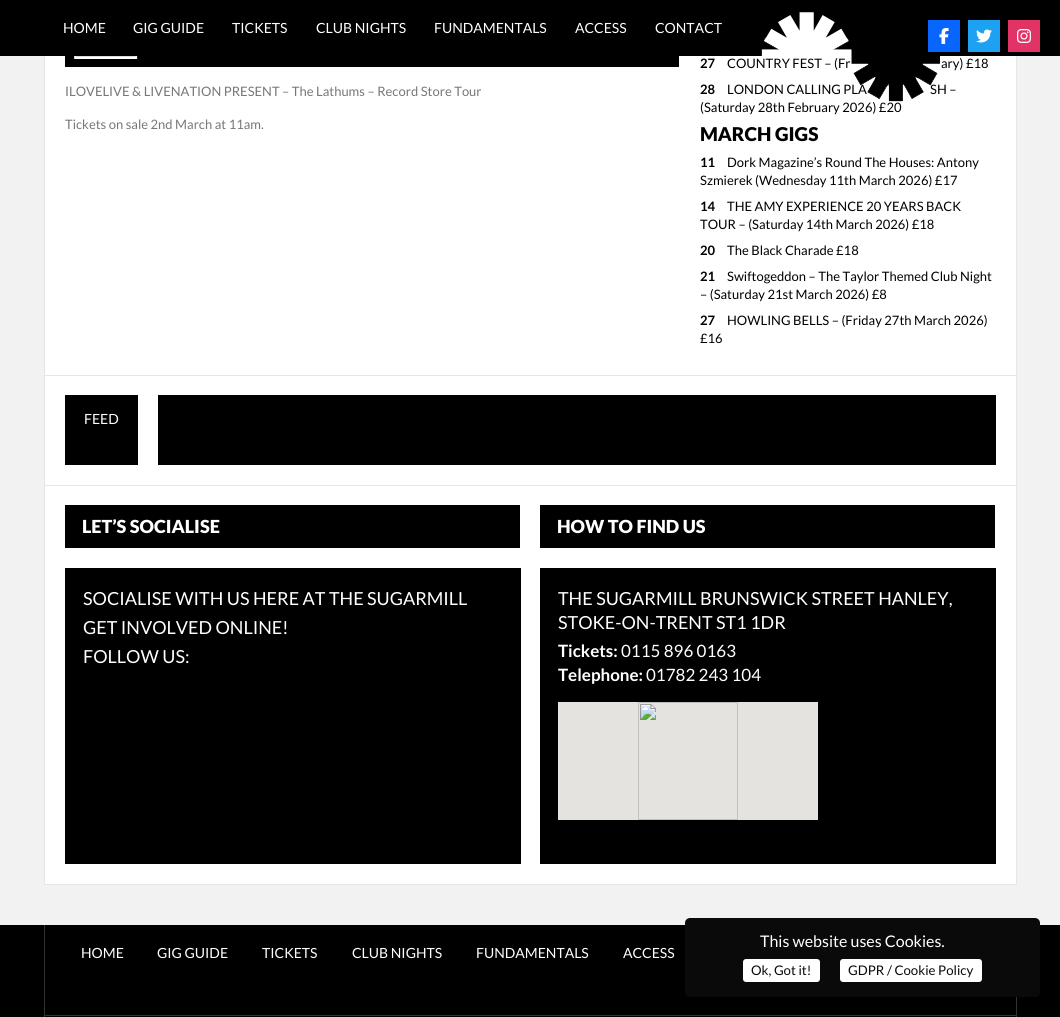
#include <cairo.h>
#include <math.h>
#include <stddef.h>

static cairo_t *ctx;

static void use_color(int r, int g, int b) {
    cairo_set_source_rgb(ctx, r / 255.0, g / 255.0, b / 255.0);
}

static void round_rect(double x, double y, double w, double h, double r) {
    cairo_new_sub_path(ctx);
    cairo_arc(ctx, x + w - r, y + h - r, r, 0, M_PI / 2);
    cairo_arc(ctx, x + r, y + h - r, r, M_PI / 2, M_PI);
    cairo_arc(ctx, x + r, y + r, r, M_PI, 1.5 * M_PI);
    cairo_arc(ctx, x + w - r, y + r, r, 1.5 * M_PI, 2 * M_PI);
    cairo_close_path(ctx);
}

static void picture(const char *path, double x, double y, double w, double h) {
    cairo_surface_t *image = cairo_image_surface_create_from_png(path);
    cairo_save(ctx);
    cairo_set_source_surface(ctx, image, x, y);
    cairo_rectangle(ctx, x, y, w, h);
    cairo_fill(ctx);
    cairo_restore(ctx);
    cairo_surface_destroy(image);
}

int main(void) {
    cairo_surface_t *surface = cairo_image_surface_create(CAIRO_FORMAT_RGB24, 1060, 1017);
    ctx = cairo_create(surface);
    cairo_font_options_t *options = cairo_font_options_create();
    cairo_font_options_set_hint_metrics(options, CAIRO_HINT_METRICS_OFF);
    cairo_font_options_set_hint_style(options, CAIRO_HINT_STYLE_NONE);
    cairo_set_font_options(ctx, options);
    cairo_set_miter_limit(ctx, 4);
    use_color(242, 242, 242);
    cairo_paint(ctx);
    use_color(255, 255, 255);
    cairo_rectangle(ctx, 45, 56, 971, 828);
    cairo_fill(ctx);
    cairo_rectangle(ctx, 44.5, -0.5, 972, 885);
    use_color(230, 230, 230);
    cairo_set_line_width(ctx, 1);
    cairo_stroke(ctx);
    use_color(0, 0, 0);
    cairo_rectangle(ctx, 0, 0, 1060, 56);
    cairo_fill(ctx);
    cairo_select_font_face(ctx, "Lato", CAIRO_FONT_SLANT_NORMAL, CAIRO_FONT_WEIGHT_NORMAL);
    cairo_set_font_size(ctx, 13);
    cairo_move_to(ctx, 727, 68);
    cairo_show_text(ctx, "COUNTRY FEST – (Fr");
    cairo_move_to(ctx, 727, 94);
    cairo_show_text(ctx, "LONDON CALLING PLA");
    cairo_move_to(ctx, 930, 94);
    cairo_show_text(ctx, "SH –");
    cairo_move_to(ctx, 700, 112);
    cairo_show_text(ctx, "(Saturday 28th February 2026) £20");
    picture("img4.png", 761, 12, 179, 90);
    use_color(8, 102, 255);
    cairo_rectangle(ctx, 928, 20, 32, 32);
    cairo_fill(ctx);
    picture("img1.png", 939, 28, 10, 16);
    use_color(29, 161, 242);
    cairo_rectangle(ctx, 968, 20, 32, 32);
    cairo_fill(ctx);
    picture("img2.png", 976, 29, 16, 14);
    use_color(226, 51, 103);
    cairo_rectangle(ctx, 1008, 20, 32, 32);
    cairo_fill(ctx);
    picture("img3.png", 1017, 29, 14, 14);
    cairo_set_font_size(ctx, 14);
    use_color(255, 255, 255);
    cairo_move_to(ctx, 63, 33);
    cairo_show_text(ctx, "HOME");
    cairo_move_to(ctx, 133, 33);
    cairo_show_text(ctx, "GIG GUIDE");
    cairo_move_to(ctx, 232, 33);
    cairo_show_text(ctx, "TICKETS");
    cairo_move_to(ctx, 316, 33);
    cairo_show_text(ctx, "CLUB NIGHTS");
    cairo_move_to(ctx, 434, 33);
    cairo_show_text(ctx, "FUNDAMENTALS");
    cairo_move_to(ctx, 575, 33);
    cairo_show_text(ctx, "ACCESS");
    cairo_move_to(ctx, 655, 33);
    cairo_show_text(ctx, "CONTACT");
    use_color(0, 0, 0);
    cairo_rectangle(ctx, 65, 56, 614, 11);
    cairo_fill(ctx);
    picture("img5.png", 74, 56, 64, 3);
    cairo_set_font_size(ctx, 13);
    use_color(119, 119, 119);
    cairo_move_to(ctx, 65, 96);
    cairo_show_text(ctx, "ILOVELIVE & LIVENATION PRESENT – The Lathums – Record Store Tour");
    cairo_move_to(ctx, 65, 129);
    cairo_show_text(ctx, "Tickets on sale 2nd March at 11am.");
    cairo_select_font_face(ctx, "Lato", CAIRO_FONT_SLANT_NORMAL, CAIRO_FONT_WEIGHT_BOLD);
    use_color(0, 0, 0);
    cairo_move_to(ctx, 700, 68);
    cairo_show_text(ctx, "27");
    cairo_select_font_face(ctx, "Lato", CAIRO_FONT_SLANT_NORMAL, CAIRO_FONT_WEIGHT_NORMAL);
    cairo_move_to(ctx, 941, 68);
    cairo_show_text(ctx, "ary) £18");
    cairo_select_font_face(ctx, "Lato", CAIRO_FONT_SLANT_NORMAL, CAIRO_FONT_WEIGHT_BOLD);
    cairo_move_to(ctx, 700, 94);
    cairo_show_text(ctx, "28");
    cairo_select_font_face(ctx, "Lato Black", CAIRO_FONT_SLANT_NORMAL, CAIRO_FONT_WEIGHT_NORMAL);
    cairo_set_font_size(ctx, 19);
    cairo_move_to(ctx, 700, 141);
    cairo_show_text(ctx, "MARCH GIGS");
    cairo_select_font_face(ctx, "Lato", CAIRO_FONT_SLANT_NORMAL, CAIRO_FONT_WEIGHT_BOLD);
    cairo_set_font_size(ctx, 13);
    cairo_move_to(ctx, 700, 167);
    cairo_show_text(ctx, "11");
    cairo_select_font_face(ctx, "Lato", CAIRO_FONT_SLANT_NORMAL, CAIRO_FONT_WEIGHT_NORMAL);
    cairo_move_to(ctx, 727, 167);
    cairo_show_text(ctx, "Dork Magazine’s Round The Houses: Antony");
    cairo_move_to(ctx, 700, 185);
    cairo_show_text(ctx, "Szmierek (Wednesday 11th March 2026) £17");
    cairo_select_font_face(ctx, "Lato", CAIRO_FONT_SLANT_NORMAL, CAIRO_FONT_WEIGHT_BOLD);
    cairo_move_to(ctx, 700, 211);
    cairo_show_text(ctx, "14");
    cairo_select_font_face(ctx, "Lato", CAIRO_FONT_SLANT_NORMAL, CAIRO_FONT_WEIGHT_NORMAL);
    cairo_move_to(ctx, 727, 211);
    cairo_show_text(ctx, "THE AMY EXPERIENCE 20 YEARS BACK");
    cairo_move_to(ctx, 700, 229);
    cairo_show_text(ctx, "TOUR – (Saturday 14th March 2026) £18");
    cairo_select_font_face(ctx, "Lato", CAIRO_FONT_SLANT_NORMAL, CAIRO_FONT_WEIGHT_BOLD);
    cairo_move_to(ctx, 700, 255);
    cairo_show_text(ctx, "20");
    cairo_select_font_face(ctx, "Lato", CAIRO_FONT_SLANT_NORMAL, CAIRO_FONT_WEIGHT_NORMAL);
    cairo_move_to(ctx, 727, 255);
    cairo_show_text(ctx, "The Black Charade £18");
    cairo_select_font_face(ctx, "Lato", CAIRO_FONT_SLANT_NORMAL, CAIRO_FONT_WEIGHT_BOLD);
    cairo_move_to(ctx, 700, 281);
    cairo_show_text(ctx, "21");
    cairo_select_font_face(ctx, "Lato", CAIRO_FONT_SLANT_NORMAL, CAIRO_FONT_WEIGHT_NORMAL);
    cairo_move_to(ctx, 727, 281);
    cairo_show_text(ctx, "Swiftogeddon – The Taylor Themed Club Night");
    cairo_move_to(ctx, 700, 299);
    cairo_show_text(ctx, "– (Saturday 21st March 2026) £8");
    cairo_select_font_face(ctx, "Lato", CAIRO_FONT_SLANT_NORMAL, CAIRO_FONT_WEIGHT_BOLD);
    cairo_move_to(ctx, 700, 325);
    cairo_show_text(ctx, "27");
    cairo_select_font_face(ctx, "Lato", CAIRO_FONT_SLANT_NORMAL, CAIRO_FONT_WEIGHT_NORMAL);
    cairo_move_to(ctx, 727, 325);
    cairo_show_text(ctx, "HOWLING BELLS – (Friday 27th March 2026)");
    cairo_move_to(ctx, 700, 343);
    cairo_show_text(ctx, "£16");
    use_color(230, 230, 230);
    cairo_rectangle(ctx, 45, 375, 971, 1);
    cairo_fill(ctx);
    use_color(0, 0, 0);
    cairo_rectangle(ctx, 65, 395, 73, 70);
    cairo_fill(ctx);
    cairo_set_font_size(ctx, 14);
    use_color(255, 255, 255);
    cairo_move_to(ctx, 84, 424);
    cairo_show_text(ctx, "FEED");
    use_color(0, 0, 0);
    cairo_rectangle(ctx, 158, 395, 838, 70);
    cairo_fill(ctx);
    use_color(230, 230, 230);
    cairo_rectangle(ctx, 45, 485, 971, 1);
    cairo_fill(ctx);
    use_color(0, 0, 0);
    cairo_rectangle(ctx, 65, 505, 455, 43);
    cairo_fill(ctx);
    cairo_select_font_face(ctx, "Lato Black", CAIRO_FONT_SLANT_NORMAL, CAIRO_FONT_WEIGHT_NORMAL);
    cairo_set_font_size(ctx, 18);
    use_color(255, 255, 255);
    cairo_move_to(ctx, 82, 533);
    cairo_show_text(ctx, "LET’S SOCIALISE");
    use_color(0, 0, 0);
    cairo_rectangle(ctx, 65, 568, 456, 296);
    cairo_fill(ctx);
    cairo_select_font_face(ctx, "Lato", CAIRO_FONT_SLANT_NORMAL, CAIRO_FONT_WEIGHT_NORMAL);
    use_color(255, 255, 255);
    cairo_move_to(ctx, 83, 605);
    cairo_show_text(ctx, "SOCIALISE WITH US HERE AT THE SUGARMILL");
    cairo_move_to(ctx, 83, 634);
    cairo_show_text(ctx, "GET INVOLVED ONLINE!");
    cairo_move_to(ctx, 83, 663);
    cairo_show_text(ctx, "FOLLOW US:");
    use_color(0, 0, 0);
    cairo_rectangle(ctx, 540, 505, 455, 43);
    cairo_fill(ctx);
    cairo_select_font_face(ctx, "Lato Black", CAIRO_FONT_SLANT_NORMAL, CAIRO_FONT_WEIGHT_NORMAL);
    use_color(255, 255, 255);
    cairo_move_to(ctx, 557, 533);
    cairo_show_text(ctx, "HOW TO FIND US");
    use_color(0, 0, 0);
    cairo_rectangle(ctx, 540, 568, 456, 296);
    cairo_fill(ctx);
    cairo_select_font_face(ctx, "Lato", CAIRO_FONT_SLANT_NORMAL, CAIRO_FONT_WEIGHT_NORMAL);
    use_color(255, 255, 255);
    cairo_move_to(ctx, 558, 605);
    cairo_show_text(ctx, "THE SUGARMILL BRUNSWICK STREET HANLEY,");
    cairo_move_to(ctx, 558, 629);
    cairo_show_text(ctx, "STOKE-ON-TRENT ST1 1DR");
    cairo_select_font_face(ctx, "Lato", CAIRO_FONT_SLANT_NORMAL, CAIRO_FONT_WEIGHT_BOLD);
    cairo_set_font_size(ctx, 17);
    cairo_move_to(ctx, 558, 657);
    cairo_show_text(ctx, "Tickets:");
    cairo_select_font_face(ctx, "Lato", CAIRO_FONT_SLANT_NORMAL, CAIRO_FONT_WEIGHT_NORMAL);
    cairo_move_to(ctx, 621, 657);
    cairo_show_text(ctx, "0115 896 0163");
    cairo_select_font_face(ctx, "Lato", CAIRO_FONT_SLANT_NORMAL, CAIRO_FONT_WEIGHT_BOLD);
    cairo_move_to(ctx, 558, 681);
    cairo_show_text(ctx, "Telephone:");
    cairo_select_font_face(ctx, "Lato", CAIRO_FONT_SLANT_NORMAL, CAIRO_FONT_WEIGHT_NORMAL);
    cairo_move_to(ctx, 646, 681);
    cairo_show_text(ctx, "01782 243 104");
    picture("img6.png", 558, 702, 260, 118);
    use_color(0, 0, 0);
    cairo_rectangle(ctx, 0, 925, 1060, 92);
    cairo_fill(ctx);
    use_color(51, 51, 51);
    cairo_rectangle(ctx, 1016, 997, 1, 20);
    cairo_fill(ctx);
    cairo_rectangle(ctx, 44, 925, 1, 92);
    cairo_fill(ctx);
    cairo_set_font_size(ctx, 14);
    use_color(255, 255, 255);
    cairo_move_to(ctx, 81, 958);
    cairo_show_text(ctx, "HOME");
    cairo_move_to(ctx, 157, 958);
    cairo_show_text(ctx, "GIG GUIDE");
    cairo_move_to(ctx, 262, 958);
    cairo_show_text(ctx, "TICKETS");
    cairo_move_to(ctx, 352, 958);
    cairo_show_text(ctx, "CLUB NIGHTS");
    cairo_move_to(ctx, 476, 958);
    cairo_show_text(ctx, "FUNDAMENTALS");
    cairo_move_to(ctx, 623, 958);
    cairo_show_text(ctx, "ACCESS");
    use_color(51, 51, 51);
    cairo_rectangle(ctx, 45, 1015, 971, 1);
    cairo_fill(ctx);
    use_color(10, 10, 10);
    round_rect(685, 918, 355, 79, 5);
    cairo_fill(ctx);
    cairo_set_font_size(ctx, 16);
    use_color(255, 255, 255);
    cairo_move_to(ctx, 760, 947);
    cairo_show_text(ctx, "This website uses Cookies.");
    round_rect(743, 959, 77, 23, 3);
    cairo_fill(ctx);
    cairo_set_font_size(ctx, 13.25);
    use_color(10, 10, 10);
    cairo_move_to(ctx, 751, 975);
    cairo_show_text(ctx, "Ok, Got it!");
    use_color(255, 255, 255);
    round_rect(840, 959, 142, 23, 3);
    cairo_fill(ctx);
    use_color(10, 10, 10);
    cairo_move_to(ctx, 848, 975);
    cairo_show_text(ctx, "GDPR / Cookie Policy");
    cairo_surface_write_to_png(surface, "result.png");
    cairo_font_options_destroy(options);
    cairo_destroy(ctx);
    cairo_surface_destroy(surface);
    return 0;
}
